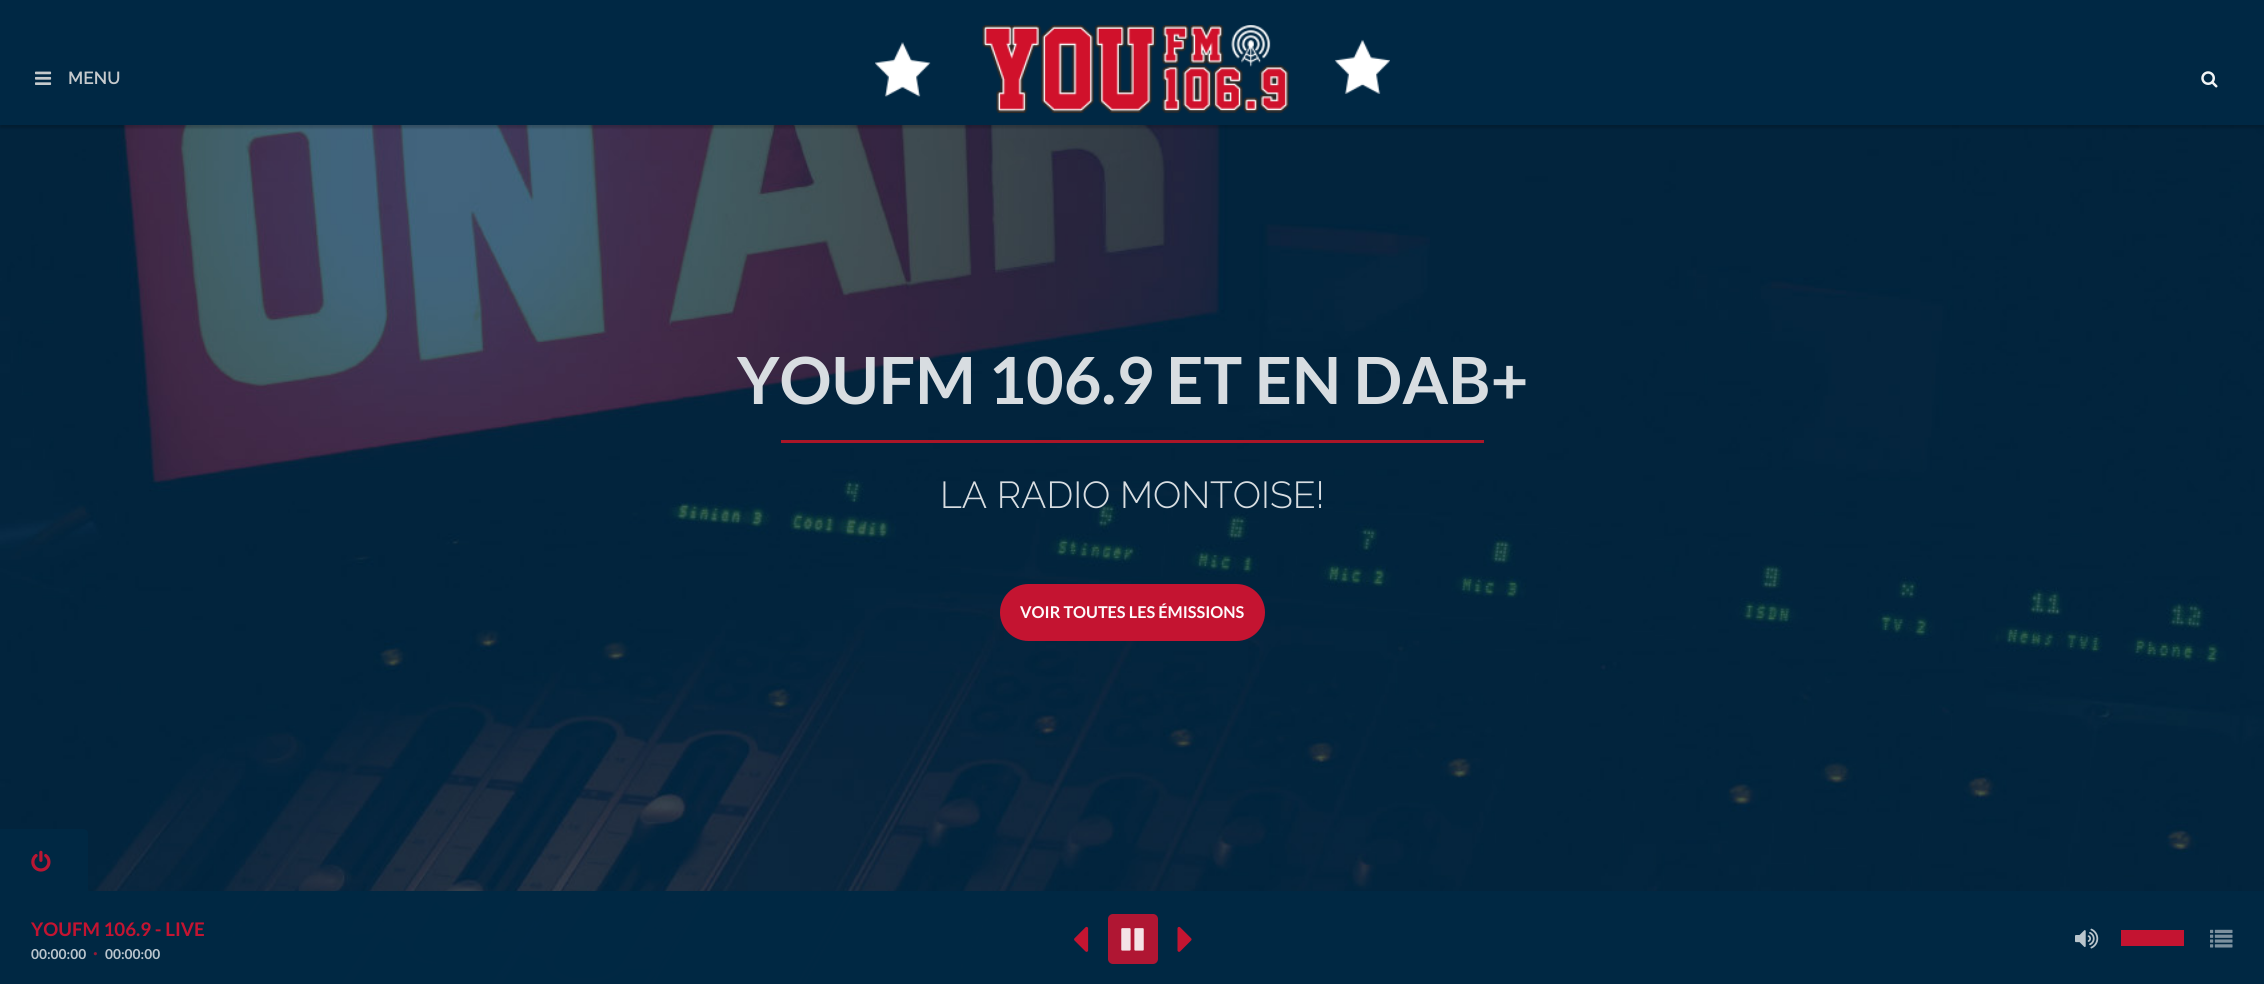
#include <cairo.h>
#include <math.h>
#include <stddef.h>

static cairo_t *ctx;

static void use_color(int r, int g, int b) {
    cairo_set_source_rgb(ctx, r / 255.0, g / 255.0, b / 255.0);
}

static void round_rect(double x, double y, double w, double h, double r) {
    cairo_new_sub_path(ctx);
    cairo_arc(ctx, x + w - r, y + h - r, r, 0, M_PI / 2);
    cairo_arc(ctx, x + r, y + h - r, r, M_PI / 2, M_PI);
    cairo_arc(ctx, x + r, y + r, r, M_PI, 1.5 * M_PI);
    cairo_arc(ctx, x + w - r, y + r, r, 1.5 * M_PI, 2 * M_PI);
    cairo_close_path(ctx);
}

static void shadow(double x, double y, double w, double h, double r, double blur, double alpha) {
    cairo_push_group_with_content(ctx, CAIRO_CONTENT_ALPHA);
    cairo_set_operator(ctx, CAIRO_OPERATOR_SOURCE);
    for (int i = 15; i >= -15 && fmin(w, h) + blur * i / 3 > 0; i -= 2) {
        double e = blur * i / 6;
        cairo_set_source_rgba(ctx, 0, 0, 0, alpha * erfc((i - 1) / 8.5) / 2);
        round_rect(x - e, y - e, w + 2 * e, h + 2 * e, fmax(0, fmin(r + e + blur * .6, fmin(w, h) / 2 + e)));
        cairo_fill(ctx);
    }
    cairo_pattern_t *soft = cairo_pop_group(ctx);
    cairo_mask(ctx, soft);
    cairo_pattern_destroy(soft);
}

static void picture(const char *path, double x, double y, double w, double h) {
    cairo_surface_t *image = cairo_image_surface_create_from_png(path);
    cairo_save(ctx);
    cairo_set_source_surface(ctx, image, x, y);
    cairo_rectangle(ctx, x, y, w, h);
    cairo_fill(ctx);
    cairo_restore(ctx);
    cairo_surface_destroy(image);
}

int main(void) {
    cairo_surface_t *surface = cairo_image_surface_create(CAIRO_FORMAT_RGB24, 2264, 984);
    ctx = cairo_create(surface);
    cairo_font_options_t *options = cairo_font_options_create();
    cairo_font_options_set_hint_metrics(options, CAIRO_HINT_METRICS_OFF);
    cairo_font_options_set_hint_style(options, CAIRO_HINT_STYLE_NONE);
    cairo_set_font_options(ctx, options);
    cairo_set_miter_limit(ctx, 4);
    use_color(255, 255, 255);
    cairo_paint(ctx);
    picture("img4.png", 0, 125, 2264, 859);
    use_color(0, 0, 0);
    shadow(0, 3, 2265, 125, 0, 1, 0.2);
    use_color(0, 40, 68);
    cairo_rectangle(ctx, 0, 0, 2264, 125);
    cairo_fill(ctx);
    picture("img1.png", 35, 71, 17, 14);
    cairo_select_font_face(ctx, "Raleway SemiBold", CAIRO_FONT_SLANT_NORMAL, CAIRO_FONT_WEIGHT_NORMAL);
    cairo_set_font_size(ctx, 17.5);
    use_color(198, 202, 205);
    cairo_move_to(ctx, 68, 84);
    cairo_show_text(ctx, "MENU");
    picture("img2.png", 875, 25, 515, 88);
    picture("img3.png", 2201, 71, 17, 17);
    cairo_select_font_face(ctx, "Lato", CAIRO_FONT_SLANT_NORMAL, CAIRO_FONT_WEIGHT_BOLD);
    cairo_set_font_size(ctx, 65);
    use_color(216, 221, 225);
    cairo_move_to(ctx, 737, 404);
    cairo_show_text(ctx, "YOUFM 106.9 ET EN DAB+");
    use_color(170, 22, 40);
    cairo_rectangle(ctx, 781, 440, 703, 3);
    cairo_fill(ctx);
    cairo_select_font_face(ctx, "Raleway Light", CAIRO_FONT_SLANT_NORMAL, CAIRO_FONT_WEIGHT_NORMAL);
    cairo_set_font_size(ctx, 37.5);
    use_color(216, 221, 225);
    cairo_move_to(ctx, 940, 508);
    cairo_show_text(ctx, "LA RADIO MONTOISE!");
    cairo_set_source_rgba(ctx, 0.784, 0.078, 0.192, 0.98);
    round_rect(1000, 584, 265, 57, 28.5);
    cairo_fill(ctx);
    cairo_select_font_face(ctx, "Lato", CAIRO_FONT_SLANT_NORMAL, CAIRO_FONT_WEIGHT_BOLD);
    cairo_set_font_size(ctx, 16.25);
    use_color(254, 250, 251);
    cairo_move_to(ctx, 1020, 618);
    cairo_show_text(ctx, "VOIR TOUTES LES ÉMISSIONS");
    cairo_set_source_rgba(ctx, 0, 0.157, 0.267, 0.98);
    cairo_new_path(ctx);
    cairo_move_to(ctx, 0, 829);
    cairo_line_to(ctx, 83, 829);
    cairo_curve_to(ctx, 86, 829, 88, 831, 88, 834);
    cairo_line_to(ctx, 88, 891);
    cairo_line_to(ctx, 0, 891);
    cairo_close_path(ctx);
    cairo_fill(ctx);
    picture("img5.png", 31, 850, 20, 22);
    cairo_rectangle(ctx, 0, 891, 2264, 93);
    cairo_fill(ctx);
    cairo_set_font_size(ctx, 18.75);
    use_color(196, 20, 49);
    cairo_move_to(ctx, 31, 936);
    cairo_show_text(ctx, "YOUFM 106.9 - LIVE");
    picture("img6.png", 2210, 929, 23, 19);
    picture("img7.png", 1074, 926, 15, 26);
    use_color(176, 22, 51);
    round_rect(1108, 914, 50, 50, 5);
    cairo_fill(ctx);
    picture("img8.png", 1121, 928, 23, 23);
    picture("img9.png", 1177, 926, 15, 26);
    picture("img10.png", 2075, 928, 24, 21);
    use_color(196, 20, 49);
    cairo_rectangle(ctx, 2121, 930, 63, 16);
    cairo_fill(ctx);
    cairo_set_font_size(ctx, 13.75);
    use_color(186, 197, 205);
    cairo_move_to(ctx, 31, 959);
    cairo_show_text(ctx, "00:00:00");
    picture("img11.png", 93, 952, 4, 4);
    cairo_move_to(ctx, 105, 959);
    cairo_show_text(ctx, "00:00:00");
    cairo_surface_write_to_png(surface, "result.png");
    cairo_font_options_destroy(options);
    cairo_destroy(ctx);
    cairo_surface_destroy(surface);
    return 0;
}
